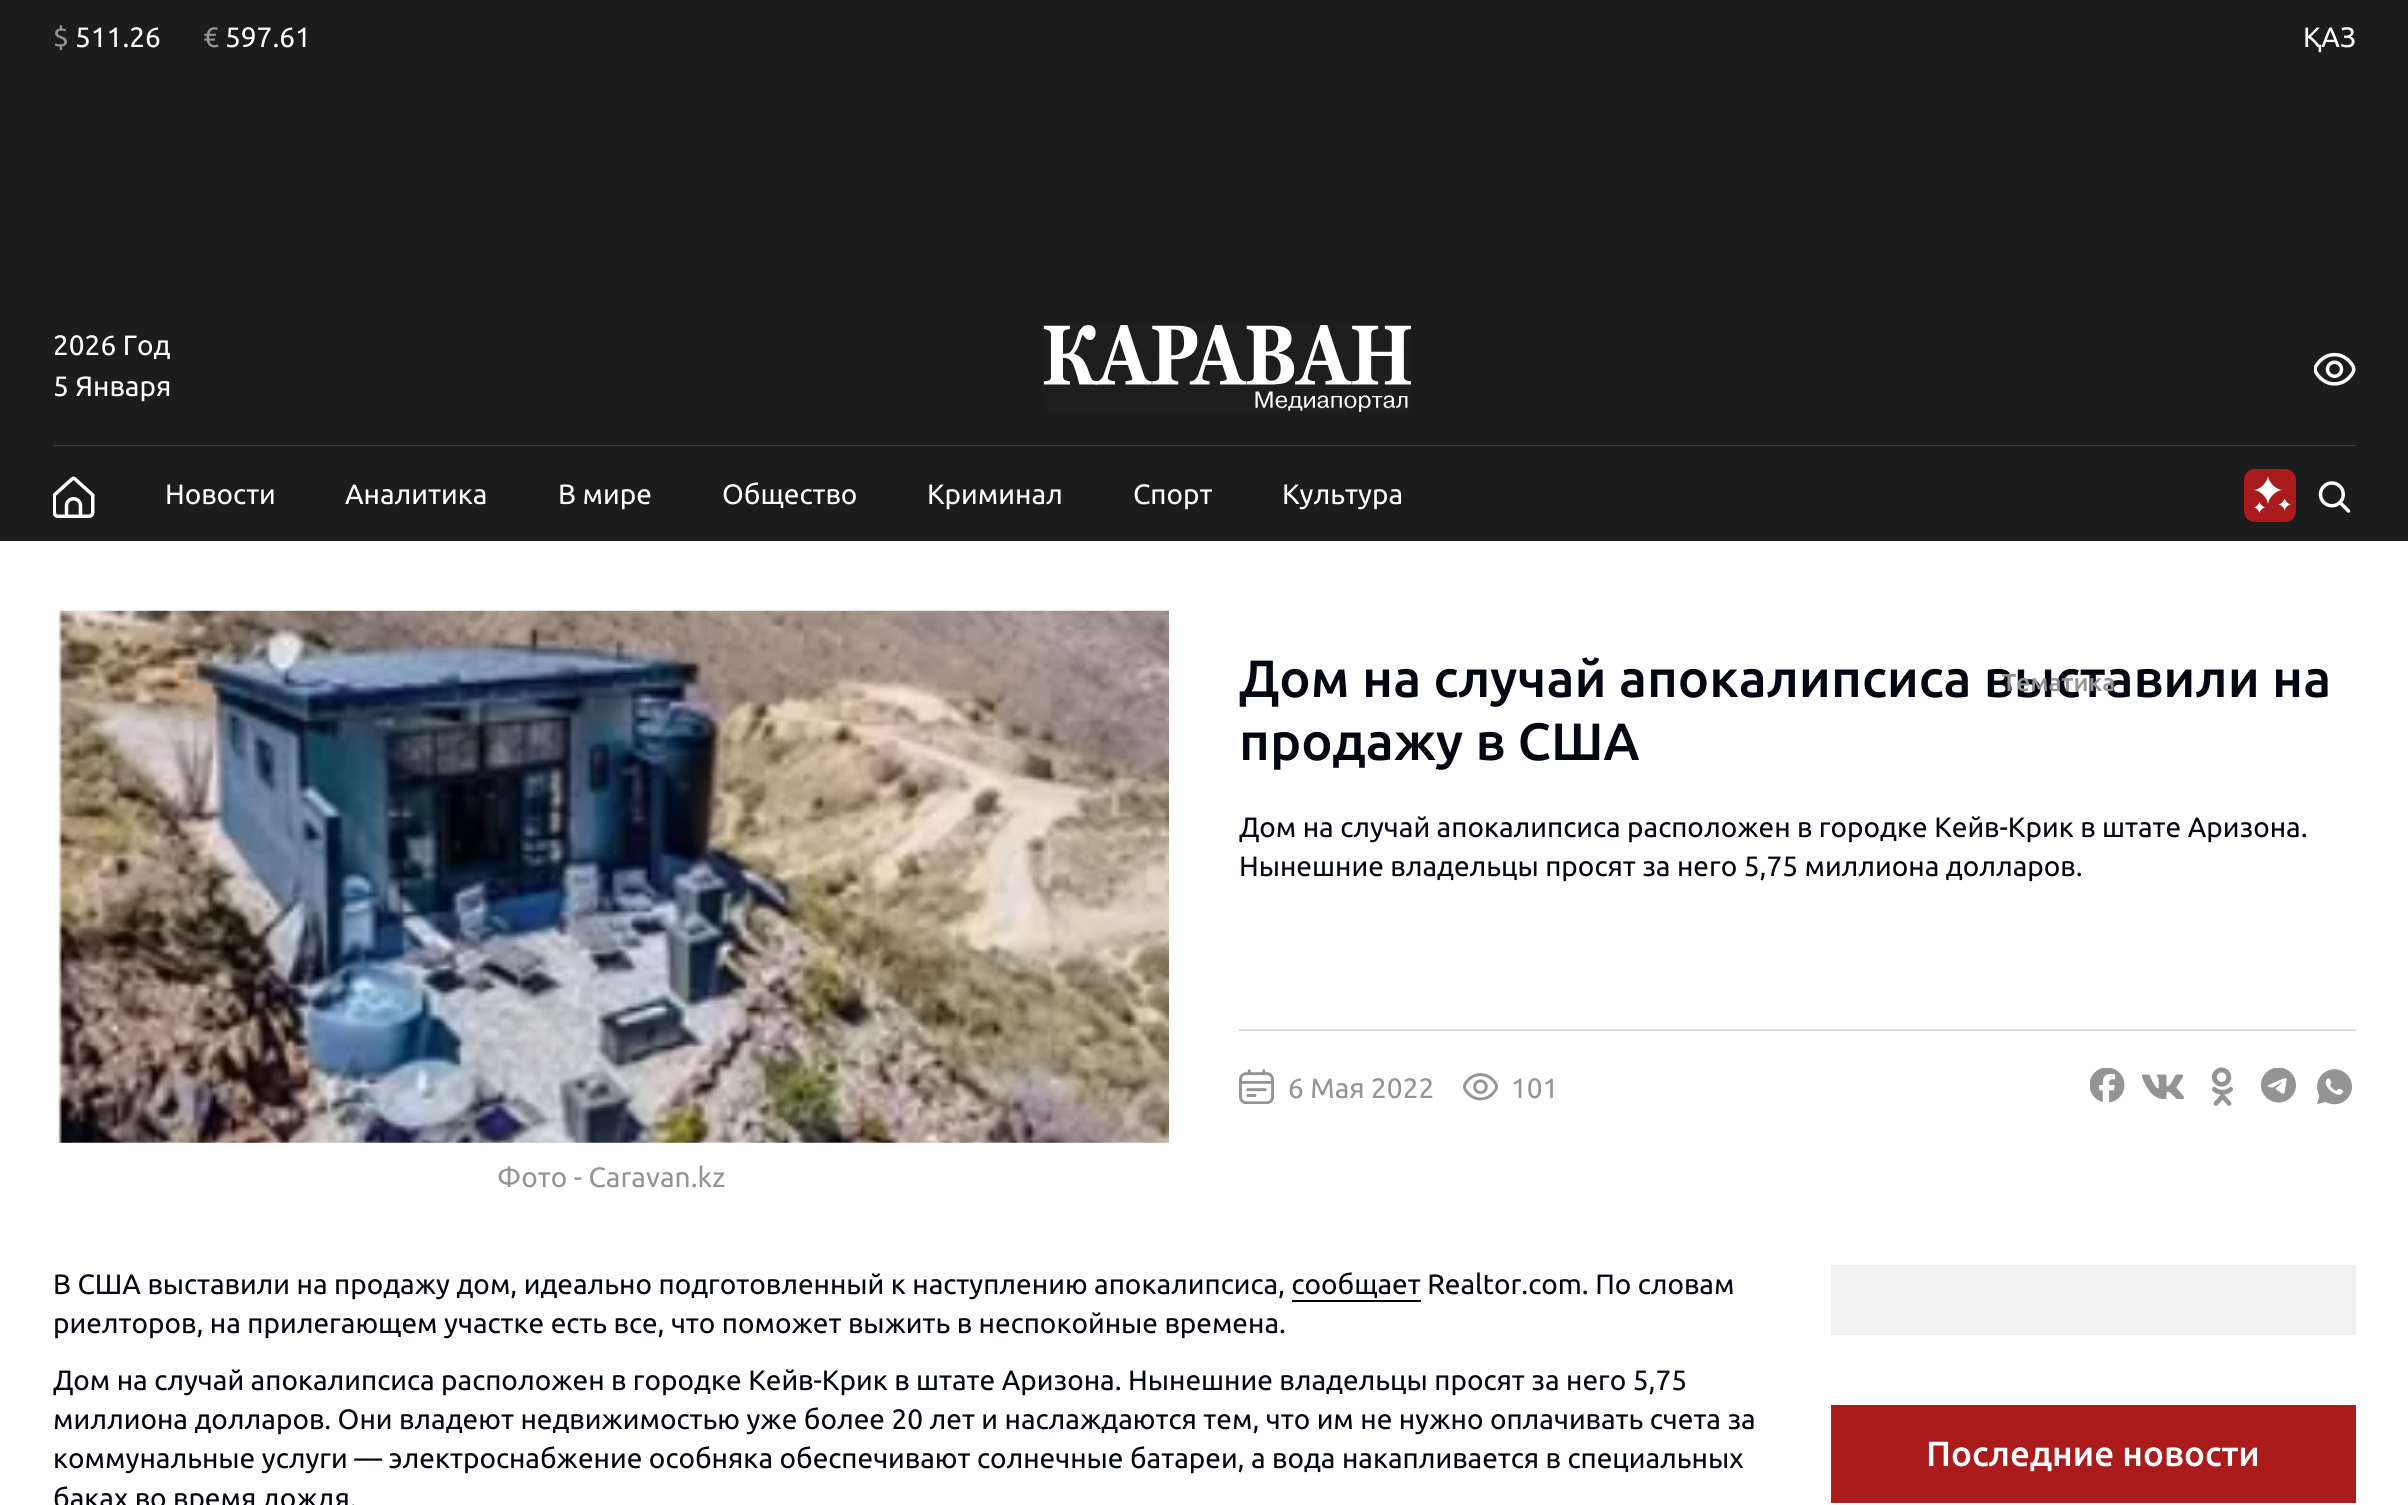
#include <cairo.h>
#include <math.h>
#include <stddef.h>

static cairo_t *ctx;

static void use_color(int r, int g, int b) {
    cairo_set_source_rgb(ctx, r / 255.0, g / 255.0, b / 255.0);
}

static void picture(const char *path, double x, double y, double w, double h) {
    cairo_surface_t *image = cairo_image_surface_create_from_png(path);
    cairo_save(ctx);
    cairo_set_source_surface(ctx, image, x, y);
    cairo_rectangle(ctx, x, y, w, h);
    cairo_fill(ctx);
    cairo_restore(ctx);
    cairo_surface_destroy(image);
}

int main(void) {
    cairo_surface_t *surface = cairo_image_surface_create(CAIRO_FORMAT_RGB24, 2408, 1505);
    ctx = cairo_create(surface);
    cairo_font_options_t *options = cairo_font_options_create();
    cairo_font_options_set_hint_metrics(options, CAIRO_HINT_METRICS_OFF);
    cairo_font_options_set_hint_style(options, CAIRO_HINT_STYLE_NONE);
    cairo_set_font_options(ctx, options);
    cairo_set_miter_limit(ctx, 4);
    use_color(255, 255, 255);
    cairo_paint(ctx);
    use_color(28, 28, 28);
    cairo_rectangle(ctx, 0, 0, 2408, 541);
    cairo_fill(ctx);
    cairo_select_font_face(ctx, "Ubuntu", CAIRO_FONT_SLANT_NORMAL, CAIRO_FONT_WEIGHT_NORMAL);
    cairo_set_font_size(ctx, 28);
    use_color(148, 148, 148);
    cairo_move_to(ctx, 53, 47);
    cairo_show_text(ctx, "$");
    use_color(255, 255, 255);
    cairo_move_to(ctx, 75, 47);
    cairo_show_text(ctx, "511.26");
    use_color(148, 148, 148);
    cairo_move_to(ctx, 203, 47);
    cairo_show_text(ctx, "€");
    use_color(255, 255, 255);
    cairo_move_to(ctx, 225, 47);
    cairo_show_text(ctx, "597.61");
    cairo_move_to(ctx, 2303, 47);
    cairo_show_text(ctx, "ҚАЗ");
    cairo_move_to(ctx, 53, 355);
    cairo_show_text(ctx, "2026 Год");
    cairo_move_to(ctx, 53, 396);
    cairo_show_text(ctx, "5 Января");
    picture("img1.png", 1043, 325, 368, 87);
    picture("img2.png", 2314, 352, 42, 34);
    use_color(64, 64, 64);
    cairo_rectangle(ctx, 53, 445, 2303, 1);
    cairo_fill(ctx);
    picture("img3.png", 53, 476, 42, 42);
    use_color(255, 255, 255);
    cairo_move_to(ctx, 165, 504);
    cairo_show_text(ctx, "Новости");
    cairo_move_to(ctx, 345, 504);
    cairo_show_text(ctx, "Аналитика");
    cairo_move_to(ctx, 558, 504);
    cairo_show_text(ctx, "В мире");
    cairo_move_to(ctx, 722, 504);
    cairo_show_text(ctx, "Общество");
    cairo_move_to(ctx, 927, 504);
    cairo_show_text(ctx, "Криминал");
    cairo_move_to(ctx, 1133, 504);
    cairo_show_text(ctx, "Спорт");
    cairo_move_to(ctx, 1282, 504);
    cairo_show_text(ctx, "Культура");
    picture("img4.png", 2244, 469, 52, 53);
    picture("img5.png", 2318, 481, 33, 32);
    cairo_select_font_face(ctx, "Ubuntu Medium", CAIRO_FONT_SLANT_NORMAL, CAIRO_FONT_WEIGHT_NORMAL);
    cairo_set_font_size(ctx, 52.5);
    use_color(3, 7, 18);
    cairo_move_to(ctx, 1239, 697);
    cairo_show_text(ctx, "Дом на случай апокалипсиса выставили на");
    cairo_set_font_size(ctx, 24.5);
    use_color(148, 148, 148);
    cairo_move_to(ctx, 2002, 691);
    cairo_show_text(ctx, "Тематика");
    picture("img6.png", 58, 610, 1111, 533);
    cairo_set_font_size(ctx, 52.5);
    use_color(3, 7, 18);
    cairo_move_to(ctx, 1239, 760);
    cairo_show_text(ctx, "продажу в США");
    cairo_select_font_face(ctx, "Ubuntu", CAIRO_FONT_SLANT_NORMAL, CAIRO_FONT_WEIGHT_NORMAL);
    cairo_set_font_size(ctx, 28);
    cairo_move_to(ctx, 1239, 837);
    cairo_show_text(ctx, "Дом на случай апокалипсиса расположен в городке Кейв-Крик в штате Аризона.");
    cairo_move_to(ctx, 1239, 876);
    cairo_show_text(ctx, "Нынешние владельцы просят за него 5,75 миллиона долларов.");
    use_color(221, 221, 221);
    cairo_rectangle(ctx, 1239, 1029, 1117, 2);
    cairo_fill(ctx);
    picture("img7.png", 1239, 1069, 35, 35);
    use_color(148, 148, 148);
    cairo_move_to(ctx, 1288, 1098);
    cairo_show_text(ctx, "6 Мая 2022");
    picture("img8.png", 1463, 1073, 35, 28);
    cairo_move_to(ctx, 1511, 1098);
    cairo_show_text(ctx, "101");
    picture("img9.png", 2090, 1068, 35, 35);
    picture("img10.png", 2142, 1074, 42, 25);
    picture("img11.png", 2212, 1067, 21, 39);
    picture("img12.png", 2261, 1068, 35, 35);
    picture("img13.png", 2317, 1069, 35, 36);
    cairo_move_to(ctx, 497, 1187);
    cairo_show_text(ctx, "Фото - Caravan.kz");
    use_color(3, 7, 18);
    cairo_move_to(ctx, 53, 1294);
    cairo_show_text(ctx, "В США выставили на продажу дом, идеально подготовленный к наступлению апокалипсиса, сообщает Realtor.com. По словам");
    cairo_rectangle(ctx, 1292, 1300, 129, 2);
    cairo_fill(ctx);
    cairo_move_to(ctx, 53, 1333);
    cairo_show_text(ctx, "риелторов, на прилегающем участке есть все, что поможет выжить в неспокойные времена.");
    cairo_move_to(ctx, 53, 1390);
    cairo_show_text(ctx, "Дом на случай апокалипсиса расположен в городке Кейв-Крик в штате Аризона. Нынешние владельцы просят за него 5,75");
    cairo_move_to(ctx, 53, 1429);
    cairo_show_text(ctx, "миллиона долларов. Они владеют недвижимостью уже более 20 лет и наслаждаются тем, что им не нужно оплачивать счета за");
    cairo_move_to(ctx, 53, 1468);
    cairo_show_text(ctx, "коммунальные услуги — электроснабжение особняка обеспечивают солнечные батареи, а вода накапливается в специальных");
    cairo_move_to(ctx, 53, 1508);
    cairo_show_text(ctx, "баках во время дождя.");
    use_color(241, 241, 241);
    cairo_rectangle(ctx, 1831, 1265, 525, 70);
    cairo_fill(ctx);
    use_color(171, 27, 27);
    cairo_rectangle(ctx, 1831, 1405, 525, 98);
    cairo_fill(ctx);
    cairo_select_font_face(ctx, "Ubuntu Medium", CAIRO_FONT_SLANT_NORMAL, CAIRO_FONT_WEIGHT_NORMAL);
    cairo_set_font_size(ctx, 35);
    use_color(255, 255, 255);
    cairo_move_to(ctx, 1926, 1466);
    cairo_show_text(ctx, "Последние новости");
    cairo_surface_write_to_png(surface, "result.png");
    cairo_font_options_destroy(options);
    cairo_destroy(ctx);
    cairo_surface_destroy(surface);
    return 0;
}
